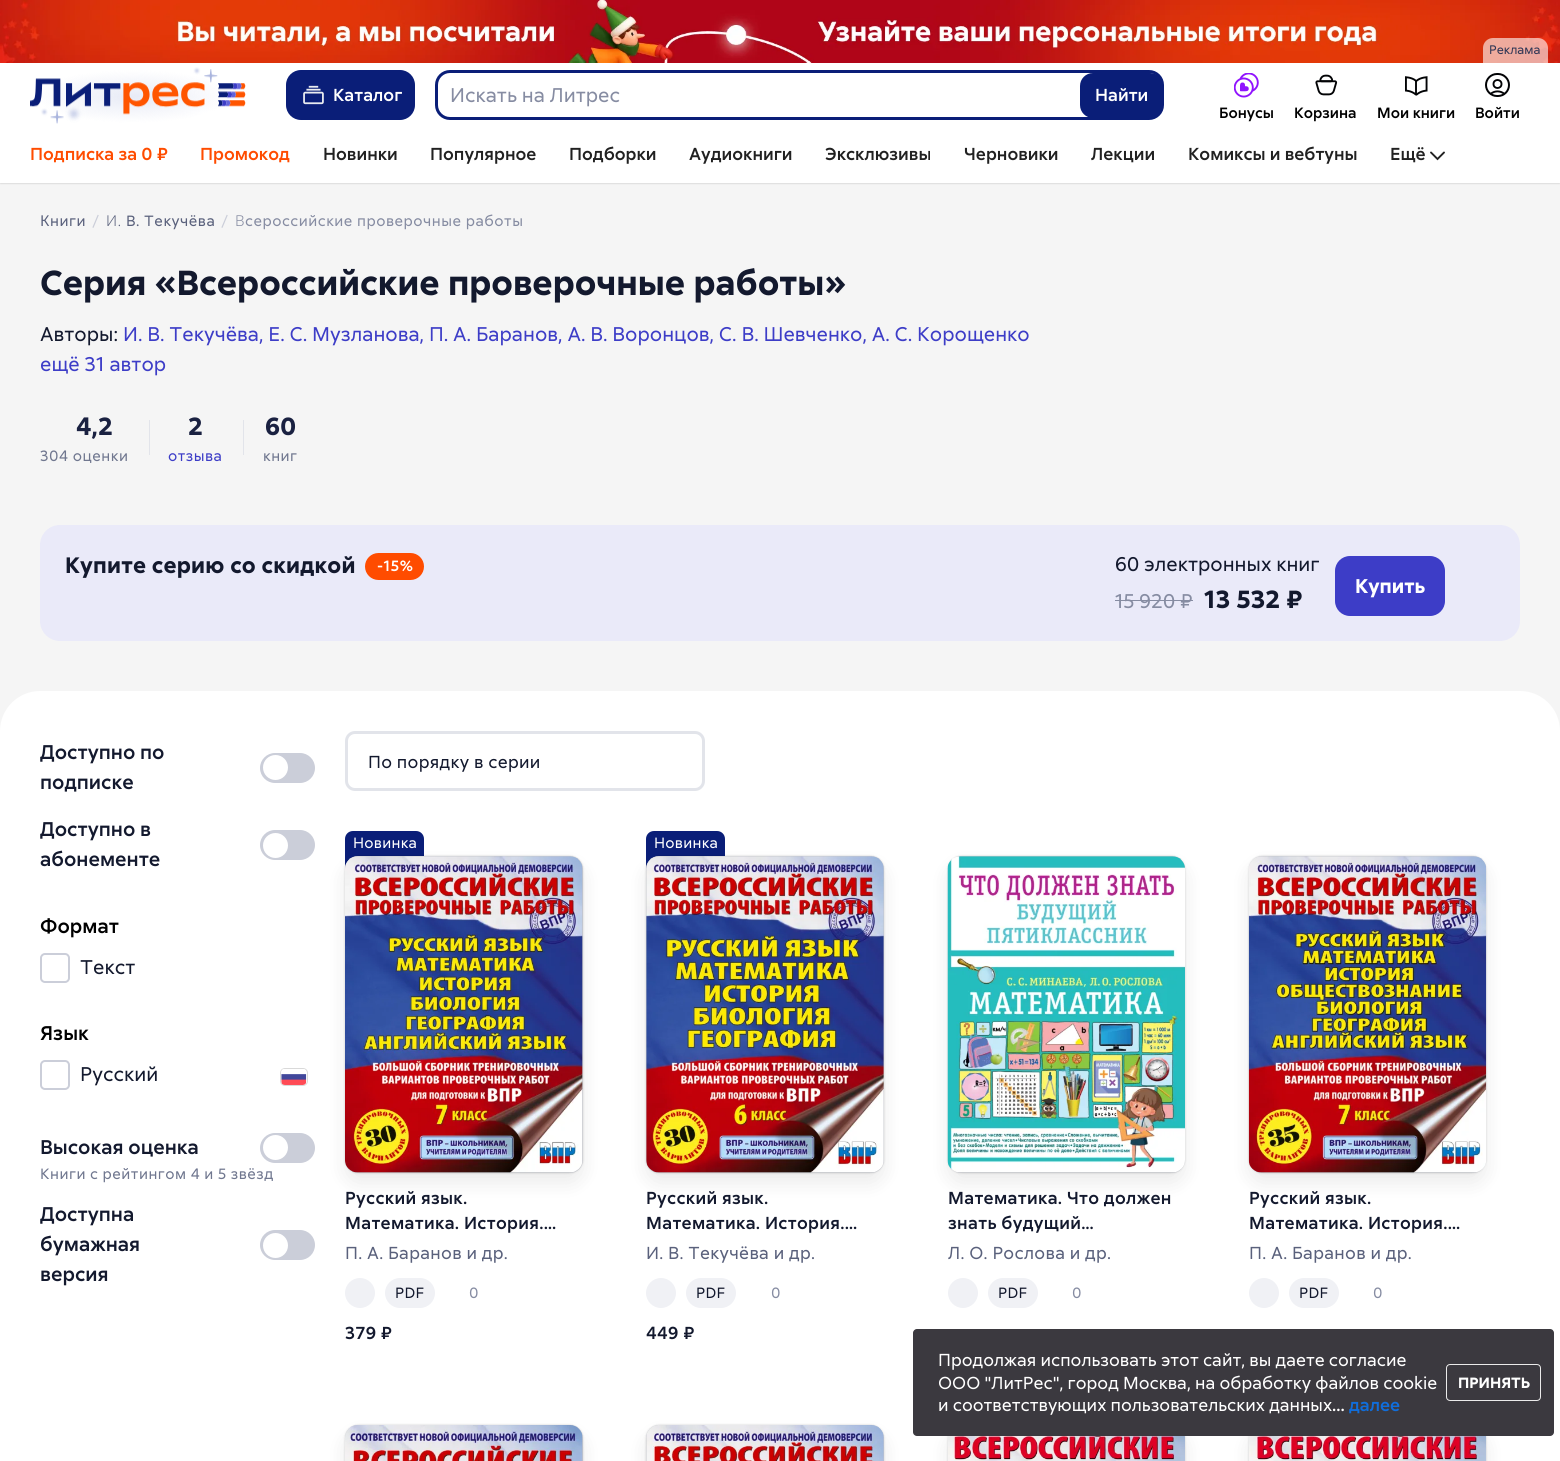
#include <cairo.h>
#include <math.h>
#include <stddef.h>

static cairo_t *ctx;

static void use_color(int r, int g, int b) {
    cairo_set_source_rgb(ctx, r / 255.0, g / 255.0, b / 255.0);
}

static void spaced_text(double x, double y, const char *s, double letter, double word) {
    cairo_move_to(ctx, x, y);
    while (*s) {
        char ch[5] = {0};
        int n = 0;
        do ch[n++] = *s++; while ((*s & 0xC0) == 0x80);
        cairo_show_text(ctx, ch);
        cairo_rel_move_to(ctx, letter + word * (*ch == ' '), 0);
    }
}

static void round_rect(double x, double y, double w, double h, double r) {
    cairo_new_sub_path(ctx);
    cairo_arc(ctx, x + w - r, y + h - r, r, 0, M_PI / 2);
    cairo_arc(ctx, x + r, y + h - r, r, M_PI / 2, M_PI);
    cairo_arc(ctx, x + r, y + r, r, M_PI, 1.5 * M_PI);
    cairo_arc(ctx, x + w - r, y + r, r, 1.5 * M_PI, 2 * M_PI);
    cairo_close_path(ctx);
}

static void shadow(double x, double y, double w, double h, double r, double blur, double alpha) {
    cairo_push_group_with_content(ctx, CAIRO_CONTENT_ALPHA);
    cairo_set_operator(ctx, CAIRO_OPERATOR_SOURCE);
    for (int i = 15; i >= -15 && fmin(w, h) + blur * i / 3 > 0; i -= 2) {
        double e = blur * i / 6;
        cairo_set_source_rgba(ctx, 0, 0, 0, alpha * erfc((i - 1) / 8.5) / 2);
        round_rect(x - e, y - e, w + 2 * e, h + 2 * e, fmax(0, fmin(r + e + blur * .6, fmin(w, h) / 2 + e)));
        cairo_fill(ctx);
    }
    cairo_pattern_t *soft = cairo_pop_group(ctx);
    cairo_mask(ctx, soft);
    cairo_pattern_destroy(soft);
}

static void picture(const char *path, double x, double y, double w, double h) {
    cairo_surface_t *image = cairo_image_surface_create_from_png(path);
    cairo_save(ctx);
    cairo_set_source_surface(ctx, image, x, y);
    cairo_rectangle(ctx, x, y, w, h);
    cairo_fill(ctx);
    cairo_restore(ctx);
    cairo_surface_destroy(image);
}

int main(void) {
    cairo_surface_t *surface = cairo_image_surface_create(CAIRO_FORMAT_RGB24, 1560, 1461);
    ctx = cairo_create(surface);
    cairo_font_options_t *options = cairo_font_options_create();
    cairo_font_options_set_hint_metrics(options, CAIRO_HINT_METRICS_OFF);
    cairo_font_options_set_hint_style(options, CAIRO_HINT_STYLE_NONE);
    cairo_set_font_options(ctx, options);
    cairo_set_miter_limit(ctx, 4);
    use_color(245, 245, 245);
    cairo_paint(ctx);
    use_color(255, 255, 255);
    cairo_rectangle(ctx, 0, 63, 1560, 65);
    cairo_fill(ctx);
    picture("img1.png", 0, 0, 1560, 63);
    cairo_set_source_rgba(ctx, 1, 1, 1, 0.6);
    cairo_new_path(ctx);
    cairo_move_to(ctx, 1493, 38);
    cairo_line_to(ctx, 1538, 38);
    cairo_curve_to(ctx, 1543.5, 38, 1548, 42.5, 1548, 48);
    cairo_line_to(ctx, 1548, 63);
    cairo_line_to(ctx, 1483, 63);
    cairo_line_to(ctx, 1483, 48);
    cairo_curve_to(ctx, 1483, 42.5, 1487.5, 38, 1493, 38);
    cairo_close_path(ctx);
    cairo_fill(ctx);
    cairo_select_font_face(ctx, "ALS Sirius", CAIRO_FONT_SLANT_NORMAL, CAIRO_FONT_WEIGHT_NORMAL);
    cairo_set_font_size(ctx, 12.5);
    use_color(47, 54, 85);
    cairo_move_to(ctx, 1489, 54);
    cairo_show_text(ctx, "Реклама");
    picture("img2.png", 30, 67, 216, 57);
    use_color(10, 30, 120);
    round_rect(286, 70, 129, 50, 15);
    cairo_fill(ctx);
    picture("img3.png", 303, 85, 21, 20);
    cairo_select_font_face(ctx, "ALS Sirius Medium", CAIRO_FONT_SLANT_NORMAL, CAIRO_FONT_WEIGHT_NORMAL);
    cairo_set_font_size(ctx, 17.5);
    use_color(255, 255, 255);
    cairo_move_to(ctx, 333, 101);
    cairo_show_text(ctx, "Каталог");
    round_rect(436.5, 71.5, 726, 47, 13.5);
    use_color(10, 30, 120);
    cairo_set_line_width(ctx, 3);
    cairo_stroke(ctx);
    cairo_select_font_face(ctx, "ALS Sirius", CAIRO_FONT_SLANT_NORMAL, CAIRO_FONT_WEIGHT_NORMAL);
    cairo_set_font_size(ctx, 20);
    use_color(134, 140, 162);
    cairo_move_to(ctx, 450, 102);
    cairo_show_text(ctx, "Искать на Литрес");
    use_color(10, 30, 120);
    round_rect(1080, 73, 83, 45, 13);
    cairo_fill(ctx);
    cairo_select_font_face(ctx, "ALS Sirius Medium", CAIRO_FONT_SLANT_NORMAL, CAIRO_FONT_WEIGHT_NORMAL);
    cairo_set_font_size(ctx, 17.5);
    use_color(255, 255, 255);
    cairo_move_to(ctx, 1095, 101);
    cairo_show_text(ctx, "Найти");
    picture("img4.png", 1234, 73, 25, 25);
    cairo_set_font_size(ctx, 15);
    use_color(0, 0, 0);
    cairo_move_to(ctx, 1219, 118);
    cairo_show_text(ctx, "Бонусы");
    picture("img5.png", 1315, 74, 23, 22);
    cairo_move_to(ctx, 1294, 118);
    cairo_show_text(ctx, "Корзина");
    picture("img6.png", 1405, 76, 23, 20);
    cairo_move_to(ctx, 1377, 118);
    cairo_show_text(ctx, "Мои книги");
    cairo_new_path(ctx);
    cairo_arc(ctx, 1497.5, 84, 4, 0, 2 * M_PI);
    use_color(2, 3, 5);
    cairo_set_line_width(ctx, 1.9);
    cairo_stroke(ctx);
    cairo_new_path(ctx);
    cairo_move_to(ctx, 1490.5, 94);
    cairo_curve_to(ctx, 1494.5, 90.5, 1500.5, 90.5, 1504.5, 94);
    cairo_stroke(ctx);
    round_rect(1486, 74, 23, 22, 11);
    cairo_set_line_width(ctx, 2);
    cairo_stroke(ctx);
    use_color(0, 0, 0);
    cairo_move_to(ctx, 1475, 118);
    cairo_show_text(ctx, "Войти");
    use_color(0, 0, 0);
    shadow(0, 155, 1560, 28, 0, 1, 0.24);
    use_color(255, 255, 255);
    cairo_rectangle(ctx, 0, 128, 1560, 55);
    cairo_fill(ctx);
    cairo_set_font_size(ctx, 17.5);
    use_color(255, 76, 0);
    cairo_move_to(ctx, 30, 160);
    cairo_show_text(ctx, "Подписка за 0 ₽");
    cairo_move_to(ctx, 200, 160);
    cairo_show_text(ctx, "Промокод");
    use_color(33, 33, 33);
    cairo_move_to(ctx, 323, 160);
    cairo_show_text(ctx, "Новинки");
    cairo_move_to(ctx, 430, 160);
    cairo_show_text(ctx, "Популярное");
    cairo_move_to(ctx, 569, 160);
    cairo_show_text(ctx, "Подборки");
    cairo_move_to(ctx, 689, 160);
    cairo_show_text(ctx, "Аудиокниги");
    cairo_move_to(ctx, 825, 160);
    cairo_show_text(ctx, "Эксклюзивы");
    cairo_move_to(ctx, 964, 160);
    cairo_show_text(ctx, "Черновики");
    cairo_move_to(ctx, 1091, 160);
    cairo_show_text(ctx, "Лекции");
    cairo_move_to(ctx, 1188, 160);
    cairo_show_text(ctx, "Комиксы и вебтуны");
    cairo_move_to(ctx, 1390, 160);
    cairo_show_text(ctx, "Ещё");
    cairo_new_path(ctx);
    cairo_move_to(ctx, 1431, 152.5);
    cairo_line_to(ctx, 1437.5, 159);
    cairo_line_to(ctx, 1444, 152.5);
    cairo_set_line_width(ctx, 1.9);
    cairo_set_line_cap(ctx, CAIRO_LINE_CAP_ROUND);
    cairo_stroke(ctx);
    cairo_select_font_face(ctx, "Noto Sans", CAIRO_FONT_SLANT_NORMAL, CAIRO_FONT_WEIGHT_NORMAL);
    cairo_set_font_size(ctx, 15);
    use_color(90, 97, 124);
    spaced_text(40, 226, "К", 0.5, 0);
    cairo_select_font_face(ctx, "ALS Sirius", CAIRO_FONT_SLANT_NORMAL, CAIRO_FONT_WEIGHT_NORMAL);
    spaced_text(50, 226, "ниги", 0.5, 0);
    use_color(203, 206, 217);
    spaced_text(92, 226, "/", 0.5, 0);
    cairo_select_font_face(ctx, "Noto Sans Light", CAIRO_FONT_SLANT_NORMAL, CAIRO_FONT_WEIGHT_NORMAL);
    use_color(90, 97, 124);
    spaced_text(106, 226, "И.", 0.5, 0);
    cairo_select_font_face(ctx, "ALS Sirius", CAIRO_FONT_SLANT_NORMAL, CAIRO_FONT_WEIGHT_NORMAL);
    spaced_text(126, 226, "В. Текучёва", 0.5, 0);
    use_color(203, 206, 217);
    spaced_text(221, 226, "/", 0.5, 0);
    cairo_select_font_face(ctx, "Noto Sans Light", CAIRO_FONT_SLANT_NORMAL, CAIRO_FONT_WEIGHT_NORMAL);
    use_color(134, 140, 162);
    spaced_text(235, 226, "В", 0.5, 0);
    cairo_select_font_face(ctx, "ALS Sirius", CAIRO_FONT_SLANT_NORMAL, CAIRO_FONT_WEIGHT_NORMAL);
    spaced_text(245, 226, "сероссийские проверочные работы", 0.5, 0);
    cairo_select_font_face(ctx, "ALS Sirius", CAIRO_FONT_SLANT_NORMAL, CAIRO_FONT_WEIGHT_BOLD);
    cairo_set_font_size(ctx, 35);
    use_color(19, 25, 46);
    cairo_move_to(ctx, 40, 295);
    cairo_show_text(ctx, "Серия «Всероссийские проверочные работы»");
    cairo_select_font_face(ctx, "ALS Sirius", CAIRO_FONT_SLANT_NORMAL, CAIRO_FONT_WEIGHT_NORMAL);
    cairo_set_font_size(ctx, 20);
    cairo_move_to(ctx, 40, 341);
    cairo_show_text(ctx, "Авторы:");
    use_color(61, 61, 199);
    cairo_move_to(ctx, 123, 341);
    cairo_show_text(ctx, "И. В. Текучёва, Е. С. Музланова, П. А. Баранов, А. В. Воронцов, С. В. Шевченко, А. С. Корощенко");
    cairo_move_to(ctx, 40, 371);
    cairo_show_text(ctx, "ещё 31 автор");
    cairo_select_font_face(ctx, "ALS Sirius", CAIRO_FONT_SLANT_NORMAL, CAIRO_FONT_WEIGHT_BOLD);
    cairo_set_font_size(ctx, 25);
    use_color(26, 33, 65);
    cairo_move_to(ctx, 76, 435);
    cairo_show_text(ctx, "4,2");
    cairo_select_font_face(ctx, "ALS Sirius", CAIRO_FONT_SLANT_NORMAL, CAIRO_FONT_WEIGHT_NORMAL);
    cairo_set_font_size(ctx, 15);
    use_color(112, 119, 143);
    spaced_text(40, 461, "304 оценки", 0.5, 0);
    use_color(226, 228, 234);
    cairo_rectangle(ctx, 149, 420, 1, 35);
    cairo_fill(ctx);
    cairo_select_font_face(ctx, "ALS Sirius", CAIRO_FONT_SLANT_NORMAL, CAIRO_FONT_WEIGHT_BOLD);
    cairo_set_font_size(ctx, 25);
    use_color(26, 33, 65);
    cairo_move_to(ctx, 188, 435);
    cairo_show_text(ctx, "2");
    cairo_select_font_face(ctx, "ALS Sirius", CAIRO_FONT_SLANT_NORMAL, CAIRO_FONT_WEIGHT_NORMAL);
    cairo_set_font_size(ctx, 15);
    use_color(61, 61, 199);
    spaced_text(168, 461, "отзыва", 0.5, 0);
    use_color(226, 228, 234);
    cairo_rectangle(ctx, 243, 420, 1, 35);
    cairo_fill(ctx);
    cairo_select_font_face(ctx, "ALS Sirius", CAIRO_FONT_SLANT_NORMAL, CAIRO_FONT_WEIGHT_BOLD);
    cairo_set_font_size(ctx, 25);
    use_color(26, 33, 65);
    cairo_move_to(ctx, 265, 435);
    cairo_show_text(ctx, "60");
    cairo_select_font_face(ctx, "ALS Sirius", CAIRO_FONT_SLANT_NORMAL, CAIRO_FONT_WEIGHT_NORMAL);
    cairo_set_font_size(ctx, 15);
    use_color(112, 119, 143);
    spaced_text(263, 461, "книг", 0.5, 0);
    use_color(234, 234, 249);
    round_rect(40, 525, 1480, 116, 20);
    cairo_fill(ctx);
    cairo_select_font_face(ctx, "ALS Sirius", CAIRO_FONT_SLANT_NORMAL, CAIRO_FONT_WEIGHT_BOLD);
    cairo_set_font_size(ctx, 22.5);
    use_color(19, 25, 46);
    spaced_text(65, 573, "Купите серию со скидкой", 0.2, 0);
    use_color(255, 76, 0);
    round_rect(365, 553, 59, 27, 13.5);
    cairo_fill(ctx);
    cairo_select_font_face(ctx, "ALS Sirius Medium", CAIRO_FONT_SLANT_NORMAL, CAIRO_FONT_WEIGHT_NORMAL);
    cairo_set_font_size(ctx, 15);
    use_color(255, 255, 255);
    spaced_text(377, 571, "-15%", 0.5, 0);
    cairo_select_font_face(ctx, "ALS Sirius", CAIRO_FONT_SLANT_NORMAL, CAIRO_FONT_WEIGHT_NORMAL);
    cairo_set_font_size(ctx, 20);
    use_color(19, 25, 46);
    cairo_move_to(ctx, 1115, 571);
    cairo_show_text(ctx, "60 электронных книг");
    use_color(134, 140, 162);
    cairo_move_to(ctx, 1115, 608);
    cairo_show_text(ctx, "15 920 ₽");
    cairo_rectangle(ctx, 1115, 600, 78, 1);
    cairo_fill(ctx);
    cairo_select_font_face(ctx, "ALS Sirius", CAIRO_FONT_SLANT_NORMAL, CAIRO_FONT_WEIGHT_BOLD);
    cairo_set_font_size(ctx, 25);
    use_color(19, 25, 46);
    cairo_move_to(ctx, 1204, 608);
    cairo_show_text(ctx, "13 532 ₽");
    use_color(61, 61, 199);
    round_rect(1335, 556, 110, 60, 15);
    cairo_fill(ctx);
    cairo_set_font_size(ctx, 20);
    use_color(255, 255, 255);
    cairo_move_to(ctx, 1355, 593);
    cairo_show_text(ctx, "Купить");
    cairo_new_path(ctx);
    cairo_move_to(ctx, 40, 691);
    cairo_line_to(ctx, 1520, 691);
    cairo_curve_to(ctx, 1542, 691, 1560, 709, 1560, 731);
    cairo_line_to(ctx, 1560, 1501);
    cairo_line_to(ctx, 0, 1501);
    cairo_line_to(ctx, 0, 731);
    cairo_curve_to(ctx, 0, 709, 18, 691, 40, 691);
    cairo_close_path(ctx);
    cairo_fill(ctx);
    cairo_select_font_face(ctx, "ALS Sirius Medium", CAIRO_FONT_SLANT_NORMAL, CAIRO_FONT_WEIGHT_NORMAL);
    use_color(19, 25, 46);
    cairo_move_to(ctx, 40, 759);
    cairo_show_text(ctx, "Доступно по");
    cairo_move_to(ctx, 40, 789);
    cairo_show_text(ctx, "подписке");
    use_color(203, 206, 217);
    round_rect(260, 753, 55, 30, 15);
    cairo_fill(ctx);
    use_color(255, 255, 255);
    cairo_arc(ctx, 275.5, 767.5, 12.5, 0, 2 * M_PI);
    cairo_fill(ctx);
    use_color(19, 25, 46);
    cairo_move_to(ctx, 40, 836);
    cairo_show_text(ctx, "Доступно в");
    cairo_move_to(ctx, 40, 866);
    cairo_show_text(ctx, "абонементе");
    use_color(203, 206, 217);
    round_rect(260, 830, 55, 30, 15);
    cairo_fill(ctx);
    use_color(255, 255, 255);
    cairo_arc(ctx, 275.5, 845.5, 12.5, 0, 2 * M_PI);
    cairo_fill(ctx);
    use_color(0, 0, 0);
    cairo_move_to(ctx, 40, 933);
    cairo_show_text(ctx, "Формат");
    round_rect(41, 954, 28, 28, 4);
    use_color(203, 206, 217);
    cairo_set_line_width(ctx, 2);
    cairo_set_line_cap(ctx, CAIRO_LINE_CAP_BUTT);
    cairo_stroke(ctx);
    cairo_select_font_face(ctx, "ALS Sirius", CAIRO_FONT_SLANT_NORMAL, CAIRO_FONT_WEIGHT_NORMAL);
    use_color(19, 25, 46);
    cairo_move_to(ctx, 80, 974);
    cairo_show_text(ctx, "Текст");
    cairo_select_font_face(ctx, "ALS Sirius Medium", CAIRO_FONT_SLANT_NORMAL, CAIRO_FONT_WEIGHT_NORMAL);
    use_color(0, 0, 0);
    cairo_move_to(ctx, 40, 1040);
    cairo_show_text(ctx, "Язык");
    round_rect(41, 1061, 28, 28, 4);
    use_color(203, 206, 217);
    cairo_stroke(ctx);
    cairo_select_font_face(ctx, "ALS Sirius", CAIRO_FONT_SLANT_NORMAL, CAIRO_FONT_WEIGHT_NORMAL);
    use_color(19, 25, 46);
    cairo_move_to(ctx, 80, 1081);
    cairo_show_text(ctx, "Русский");
    round_rect(280.5, 1068.5, 27, 17, 4.5);
    use_color(217, 217, 217);
    cairo_set_line_width(ctx, 1);
    cairo_stroke(ctx);
    picture("img7.png", 281, 1069, 26, 16);
    cairo_select_font_face(ctx, "ALS Sirius Medium", CAIRO_FONT_SLANT_NORMAL, CAIRO_FONT_WEIGHT_NORMAL);
    use_color(19, 25, 46);
    cairo_move_to(ctx, 40, 1154);
    cairo_show_text(ctx, "Высокая оценка");
    use_color(203, 206, 217);
    round_rect(260, 1133, 55, 30, 15);
    cairo_fill(ctx);
    use_color(255, 255, 255);
    cairo_arc(ctx, 275.5, 1147.5, 12.5, 0, 2 * M_PI);
    cairo_fill(ctx);
    cairo_select_font_face(ctx, "ALS Sirius", CAIRO_FONT_SLANT_NORMAL, CAIRO_FONT_WEIGHT_NORMAL);
    cairo_set_font_size(ctx, 15);
    use_color(112, 119, 143);
    spaced_text(40, 1179, "Книги с рейтингом 4 и 5 звёзд", 0.5, 0);
    cairo_select_font_face(ctx, "ALS Sirius Medium", CAIRO_FONT_SLANT_NORMAL, CAIRO_FONT_WEIGHT_NORMAL);
    cairo_set_font_size(ctx, 20);
    use_color(19, 25, 46);
    cairo_move_to(ctx, 40, 1221);
    cairo_show_text(ctx, "Доступна");
    cairo_move_to(ctx, 40, 1251);
    cairo_show_text(ctx, "бумажная");
    cairo_move_to(ctx, 40, 1281);
    cairo_show_text(ctx, "версия");
    use_color(203, 206, 217);
    round_rect(260, 1230, 55, 30, 15);
    cairo_fill(ctx);
    use_color(255, 255, 255);
    cairo_arc(ctx, 275.5, 1245.5, 12.5, 0, 2 * M_PI);
    cairo_fill(ctx);
    round_rect(346.5, 732.5, 357, 57, 8.5);
    use_color(226, 228, 234);
    cairo_set_line_width(ctx, 3);
    cairo_stroke(ctx);
    cairo_select_font_face(ctx, "ALS Sirius", CAIRO_FONT_SLANT_NORMAL, CAIRO_FONT_WEIGHT_NORMAL);
    cairo_set_font_size(ctx, 17.5);
    use_color(19, 25, 46);
    spaced_text(368, 768, "По порядку в серии", 0.3, 0);
    use_color(10, 30, 120);
    cairo_new_path(ctx);
    cairo_move_to(ctx, 353, 831);
    cairo_line_to(ctx, 416, 831);
    cairo_curve_to(ctx, 420.5, 831, 424, 834.5, 424, 839);
    cairo_line_to(ctx, 424, 869);
    cairo_line_to(ctx, 345, 869);
    cairo_line_to(ctx, 345, 839);
    cairo_curve_to(ctx, 345, 834.5, 348.5, 831, 353, 831);
    cairo_close_path(ctx);
    cairo_fill(ctx);
    use_color(226, 228, 234);
    round_rect(345, 856, 238, 317, 13);
    cairo_fill(ctx);
    use_color(0, 0, 0);
    shadow(345, 866, 238, 317, 13, 10, 0.08);
    shadow(345, 856, 238, 317, 13, 1, 0.16);
    picture("img8.png", 345, 856, 238, 317);
    cairo_set_font_size(ctx, 15);
    use_color(255, 255, 255);
    spaced_text(353, 848, "Новинка", 0.25, 0);
    cairo_select_font_face(ctx, "ALS Sirius Medium", CAIRO_FONT_SLANT_NORMAL, CAIRO_FONT_WEIGHT_NORMAL);
    cairo_set_font_size(ctx, 17.5);
    use_color(19, 25, 46);
    spaced_text(345, 1204, "Русский язык.", 0.3, 0);
    spaced_text(345, 1229, "Математика. История.…", 0.3, 0);
    cairo_select_font_face(ctx, "ALS Sirius", CAIRO_FONT_SLANT_NORMAL, CAIRO_FONT_WEIGHT_NORMAL);
    use_color(90, 97, 124);
    spaced_text(345, 1259, "П. А. Баранов и др.", 0.3, 0);
    use_color(240, 241, 245);
    cairo_new_path(ctx);
    cairo_arc(ctx, 360, 1293, 15, 0, 2 * M_PI);
    cairo_fill(ctx);
    round_rect(385, 1278, 50, 30, 15);
    cairo_fill(ctx);
    cairo_set_font_size(ctx, 15);
    use_color(19, 25, 46);
    spaced_text(395, 1298, "PDF", 0.25, 0);
    use_color(134, 140, 162);
    cairo_move_to(ctx, 469, 1298);
    cairo_show_text(ctx, "0");
    cairo_select_font_face(ctx, "ALS Sirius Medium", CAIRO_FONT_SLANT_NORMAL, CAIRO_FONT_WEIGHT_NORMAL);
    cairo_set_font_size(ctx, 17.5);
    use_color(19, 25, 46);
    spaced_text(345, 1339, "379 ₽", 0.3, 0);
    use_color(10, 30, 120);
    cairo_new_path(ctx);
    cairo_move_to(ctx, 654, 831);
    cairo_line_to(ctx, 717, 831);
    cairo_curve_to(ctx, 721.5, 831, 725, 834.5, 725, 839);
    cairo_line_to(ctx, 725, 869);
    cairo_line_to(ctx, 646, 869);
    cairo_line_to(ctx, 646, 839);
    cairo_curve_to(ctx, 646, 834.5, 649.5, 831, 654, 831);
    cairo_close_path(ctx);
    cairo_fill(ctx);
    use_color(226, 228, 234);
    round_rect(646, 856, 238, 317, 13);
    cairo_fill(ctx);
    use_color(0, 0, 0);
    shadow(646, 866, 238, 317, 13, 10, 0.08);
    shadow(646, 856, 238, 317, 13, 1, 0.16);
    picture("img9.png", 646, 856, 238, 317);
    cairo_select_font_face(ctx, "ALS Sirius", CAIRO_FONT_SLANT_NORMAL, CAIRO_FONT_WEIGHT_NORMAL);
    cairo_set_font_size(ctx, 15);
    use_color(255, 255, 255);
    spaced_text(654, 848, "Новинка", 0.25, 0);
    cairo_select_font_face(ctx, "ALS Sirius Medium", CAIRO_FONT_SLANT_NORMAL, CAIRO_FONT_WEIGHT_NORMAL);
    cairo_set_font_size(ctx, 17.5);
    use_color(19, 25, 46);
    spaced_text(646, 1204, "Русский язык.", 0.3, 0);
    spaced_text(646, 1229, "Математика. История.…", 0.3, 0);
    cairo_select_font_face(ctx, "ALS Sirius", CAIRO_FONT_SLANT_NORMAL, CAIRO_FONT_WEIGHT_NORMAL);
    use_color(90, 97, 124);
    spaced_text(646, 1259, "И. В. Текучёва и др.", 0.3, 0);
    use_color(240, 241, 245);
    cairo_new_path(ctx);
    cairo_arc(ctx, 661, 1293, 15, 0, 2 * M_PI);
    cairo_fill(ctx);
    round_rect(686, 1278, 50, 30, 15);
    cairo_fill(ctx);
    cairo_set_font_size(ctx, 15);
    use_color(19, 25, 46);
    spaced_text(696, 1298, "PDF", 0.25, 0);
    use_color(134, 140, 162);
    cairo_move_to(ctx, 771, 1298);
    cairo_show_text(ctx, "0");
    cairo_select_font_face(ctx, "ALS Sirius Medium", CAIRO_FONT_SLANT_NORMAL, CAIRO_FONT_WEIGHT_NORMAL);
    cairo_set_font_size(ctx, 17.5);
    use_color(19, 25, 46);
    spaced_text(646, 1339, "449 ₽", 0.3, 0);
    use_color(226, 228, 234);
    round_rect(948, 856, 237, 317, 13);
    cairo_fill(ctx);
    use_color(0, 0, 0);
    shadow(948, 866, 237, 317, 13, 10, 0.08);
    shadow(948, 856, 237, 317, 13, 1, 0.16);
    picture("img10.png", 947, 856, 238, 317);
    use_color(19, 25, 46);
    spaced_text(948, 1204, "Математика. Что должен", 0.3, 0);
    spaced_text(948, 1229, "знать будущий…", 0.3, 0);
    cairo_select_font_face(ctx, "ALS Sirius", CAIRO_FONT_SLANT_NORMAL, CAIRO_FONT_WEIGHT_NORMAL);
    use_color(90, 97, 124);
    spaced_text(948, 1259, "Л. О. Рослова и др.", 0.3, 0);
    use_color(240, 241, 245);
    cairo_new_path(ctx);
    cairo_arc(ctx, 963, 1293, 15, 0, 2 * M_PI);
    cairo_fill(ctx);
    round_rect(988, 1278, 50, 30, 15);
    cairo_fill(ctx);
    cairo_set_font_size(ctx, 15);
    use_color(19, 25, 46);
    spaced_text(998, 1298, "PDF", 0.25, 0);
    use_color(134, 140, 162);
    cairo_move_to(ctx, 1072, 1298);
    cairo_show_text(ctx, "0");
    use_color(226, 228, 234);
    round_rect(1249, 856, 237, 317, 13);
    cairo_fill(ctx);
    use_color(0, 0, 0);
    shadow(1249, 866, 237, 317, 13, 10, 0.08);
    shadow(1249, 856, 237, 317, 13, 1, 0.16);
    picture("img11.png", 1248, 856, 239, 317);
    cairo_select_font_face(ctx, "ALS Sirius Medium", CAIRO_FONT_SLANT_NORMAL, CAIRO_FONT_WEIGHT_NORMAL);
    cairo_set_font_size(ctx, 17.5);
    use_color(19, 25, 46);
    spaced_text(1249, 1204, "Русский язык.", 0.3, 0);
    spaced_text(1249, 1229, "Математика. История.…", 0.3, 0);
    cairo_select_font_face(ctx, "ALS Sirius", CAIRO_FONT_SLANT_NORMAL, CAIRO_FONT_WEIGHT_NORMAL);
    use_color(90, 97, 124);
    spaced_text(1249, 1259, "П. А. Баранов и др.", 0.3, 0);
    use_color(240, 241, 245);
    cairo_new_path(ctx);
    cairo_arc(ctx, 1264, 1293, 15, 0, 2 * M_PI);
    cairo_fill(ctx);
    round_rect(1289, 1278, 50, 30, 15);
    cairo_fill(ctx);
    cairo_set_font_size(ctx, 15);
    use_color(19, 25, 46);
    spaced_text(1299, 1298, "PDF", 0.25, 0);
    use_color(134, 140, 162);
    cairo_move_to(ctx, 1373, 1298);
    cairo_show_text(ctx, "0");
    use_color(226, 228, 234);
    round_rect(345, 1425, 238, 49, 13);
    cairo_fill(ctx);
    use_color(0, 0, 0);
    shadow(345, 1435, 238, 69, 13, 10, 0.08);
    shadow(345, 1425, 238, 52, 13, 1, 0.16);
    picture("img12.png", 345, 1425, 238, 36);
    use_color(226, 228, 234);
    round_rect(646, 1425, 238, 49, 13);
    cairo_fill(ctx);
    use_color(0, 0, 0);
    shadow(646, 1435, 238, 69, 13, 10, 0.08);
    shadow(646, 1425, 238, 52, 13, 1, 0.16);
    picture("img13.png", 646, 1425, 238, 36);
    shadow(948, 1435, 237, 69, 13, 10, 0.08);
    shadow(948, 1425, 237, 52, 13, 1, 0.16);
    picture("img14.png", 948, 1436, 237, 25);
    shadow(1249, 1435, 237, 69, 13, 10, 0.08);
    shadow(1249, 1425, 237, 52, 13, 1, 0.16);
    picture("img15.png", 1249, 1436, 238, 25);
    use_color(59, 57, 63);
    round_rect(913, 1329, 641, 107, 4);
    cairo_fill(ctx);
    cairo_set_font_size(ctx, 17.5);
    use_color(255, 255, 255);
    cairo_move_to(ctx, 938, 1366);
    cairo_show_text(ctx, "Продолжая использовать этот сайт, вы даете согласие");
    cairo_move_to(ctx, 938, 1389);
    cairo_show_text(ctx, "ООО \"ЛитРес\", город Москва, на обработку файлов cookie");
    cairo_move_to(ctx, 938, 1411);
    cairo_show_text(ctx, "и соответствующих пользовательских данных");
    cairo_select_font_face(ctx, "ALS Sirius Medium", CAIRO_FONT_SLANT_NORMAL, CAIRO_FONT_WEIGHT_NORMAL);
    cairo_move_to(ctx, 1332, 1411);
    cairo_show_text(ctx, "...");
    use_color(16, 110, 220);
    cairo_move_to(ctx, 1349, 1411);
    cairo_show_text(ctx, "далее");
    round_rect(1446.5, 1364.5, 94, 36, 3.5);
    use_color(235, 235, 235);
    cairo_set_line_width(ctx, 1);
    cairo_stroke(ctx);
    cairo_select_font_face(ctx, "ALS Sirius", CAIRO_FONT_SLANT_NORMAL, CAIRO_FONT_WEIGHT_BOLD);
    cairo_set_font_size(ctx, 15);
    use_color(255, 255, 255);
    cairo_move_to(ctx, 1458, 1388);
    cairo_show_text(ctx, "ПРИНЯТЬ");
    cairo_surface_write_to_png(surface, "result.png");
    cairo_font_options_destroy(options);
    cairo_destroy(ctx);
    cairo_surface_destroy(surface);
    return 0;
}
